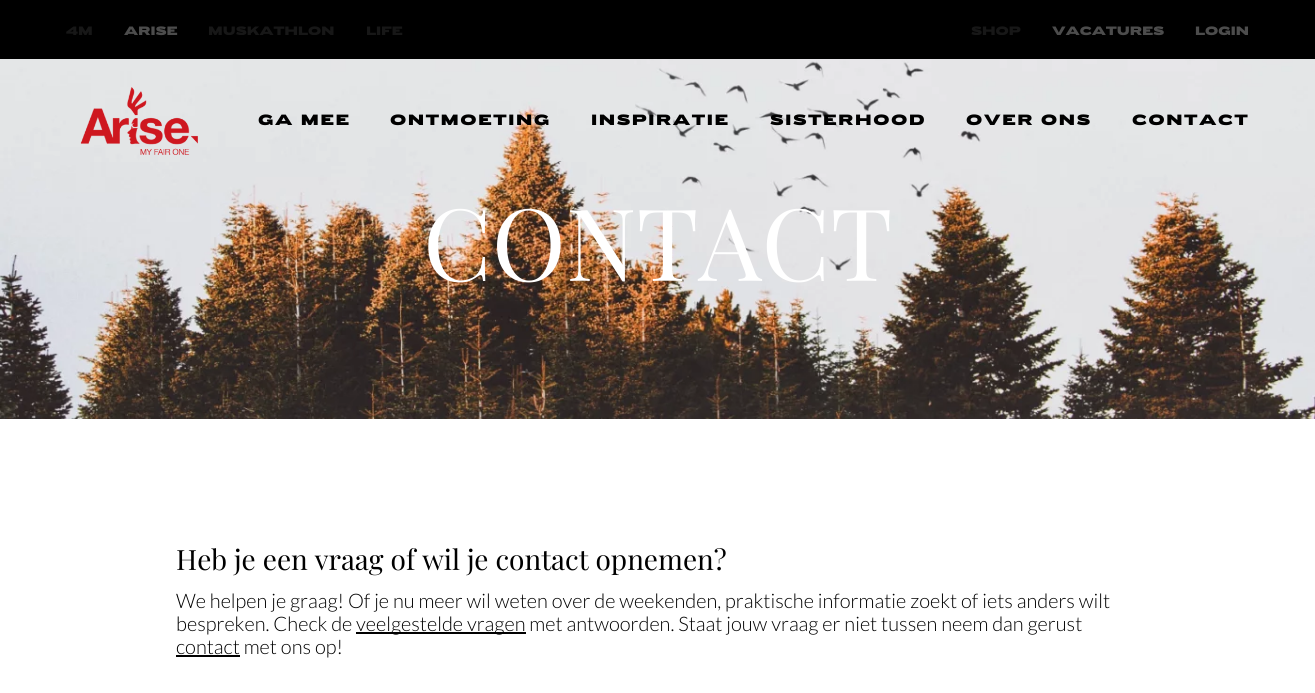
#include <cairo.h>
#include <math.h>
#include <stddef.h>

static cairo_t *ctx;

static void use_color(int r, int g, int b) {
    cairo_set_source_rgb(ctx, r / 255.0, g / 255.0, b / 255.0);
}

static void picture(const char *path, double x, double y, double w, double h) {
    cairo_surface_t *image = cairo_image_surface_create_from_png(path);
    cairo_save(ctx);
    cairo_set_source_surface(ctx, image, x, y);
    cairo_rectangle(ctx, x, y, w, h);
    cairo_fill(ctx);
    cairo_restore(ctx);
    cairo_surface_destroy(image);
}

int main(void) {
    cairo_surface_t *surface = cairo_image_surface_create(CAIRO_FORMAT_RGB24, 1315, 693);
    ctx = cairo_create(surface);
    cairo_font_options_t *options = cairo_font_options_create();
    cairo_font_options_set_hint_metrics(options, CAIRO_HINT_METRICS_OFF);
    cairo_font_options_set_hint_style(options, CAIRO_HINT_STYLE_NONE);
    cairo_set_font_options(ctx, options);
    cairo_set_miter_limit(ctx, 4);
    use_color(255, 255, 255);
    cairo_paint(ctx);
    use_color(0, 0, 0);
    cairo_rectangle(ctx, 0, 0, 1315, 59);
    cairo_fill(ctx);
    picture("img1.png", 66, 26, 26, 9);
    picture("img2.png", 124, 26, 54, 10);
    picture("img3.png", 209, 26, 125, 9);
    picture("img4.png", 367, 26, 36, 9);
    picture("img5.png", 971, 26, 50, 9);
    picture("img6.png", 1052, 26, 112, 10);
    picture("img7.png", 1195, 26, 53, 10);
    picture("img15.png", 0, 59, 1315, 360);
    picture("img8.png", 80, 87, 118, 68);
    picture("img9.png", 258, 114, 91, 12);
    picture("img10.png", 390, 114, 159, 12);
    picture("img11.png", 592, 114, 136, 12);
    picture("img12.png", 770, 114, 154, 12);
    picture("img13.png", 966, 114, 124, 12);
    picture("img14.png", 1132, 114, 116, 12);
    cairo_select_font_face(ctx, "Playfair Display", CAIRO_FONT_SLANT_NORMAL, CAIRO_FONT_WEIGHT_NORMAL);
    cairo_set_font_size(ctx, 100);
    use_color(255, 255, 255);
    cairo_move_to(ctx, 423, 281);
    cairo_show_text(ctx, "CONTACT");
    cairo_set_font_size(ctx, 28);
    use_color(0, 0, 0);
    cairo_move_to(ctx, 176, 570);
    cairo_show_text(ctx, "Heb je een vraag of wil je contact opnemen?");
    cairo_select_font_face(ctx, "Lato Light", CAIRO_FONT_SLANT_NORMAL, CAIRO_FONT_WEIGHT_NORMAL);
    cairo_set_font_size(ctx, 20);
    cairo_move_to(ctx, 176, 608);
    cairo_show_text(ctx, "We helpen je graag! Of je nu meer wil weten over de weekenden, praktische informatie zoekt of iets anders wilt");
    cairo_move_to(ctx, 176, 631);
    cairo_show_text(ctx, "bespreken. Check de");
    cairo_rectangle(ctx, 356, 632, 170, 2);
    cairo_fill(ctx);
    cairo_move_to(ctx, 356, 631);
    cairo_show_text(ctx, "veelgestelde vragen met antwoorden. Staat jouw vraag er niet tussen neem dan gerust");
    cairo_rectangle(ctx, 176, 655, 64, 2);
    cairo_fill(ctx);
    cairo_move_to(ctx, 176, 654);
    cairo_show_text(ctx, "contact met ons op!");
    cairo_surface_write_to_png(surface, "result.png");
    cairo_font_options_destroy(options);
    cairo_destroy(ctx);
    cairo_surface_destroy(surface);
    return 0;
}
